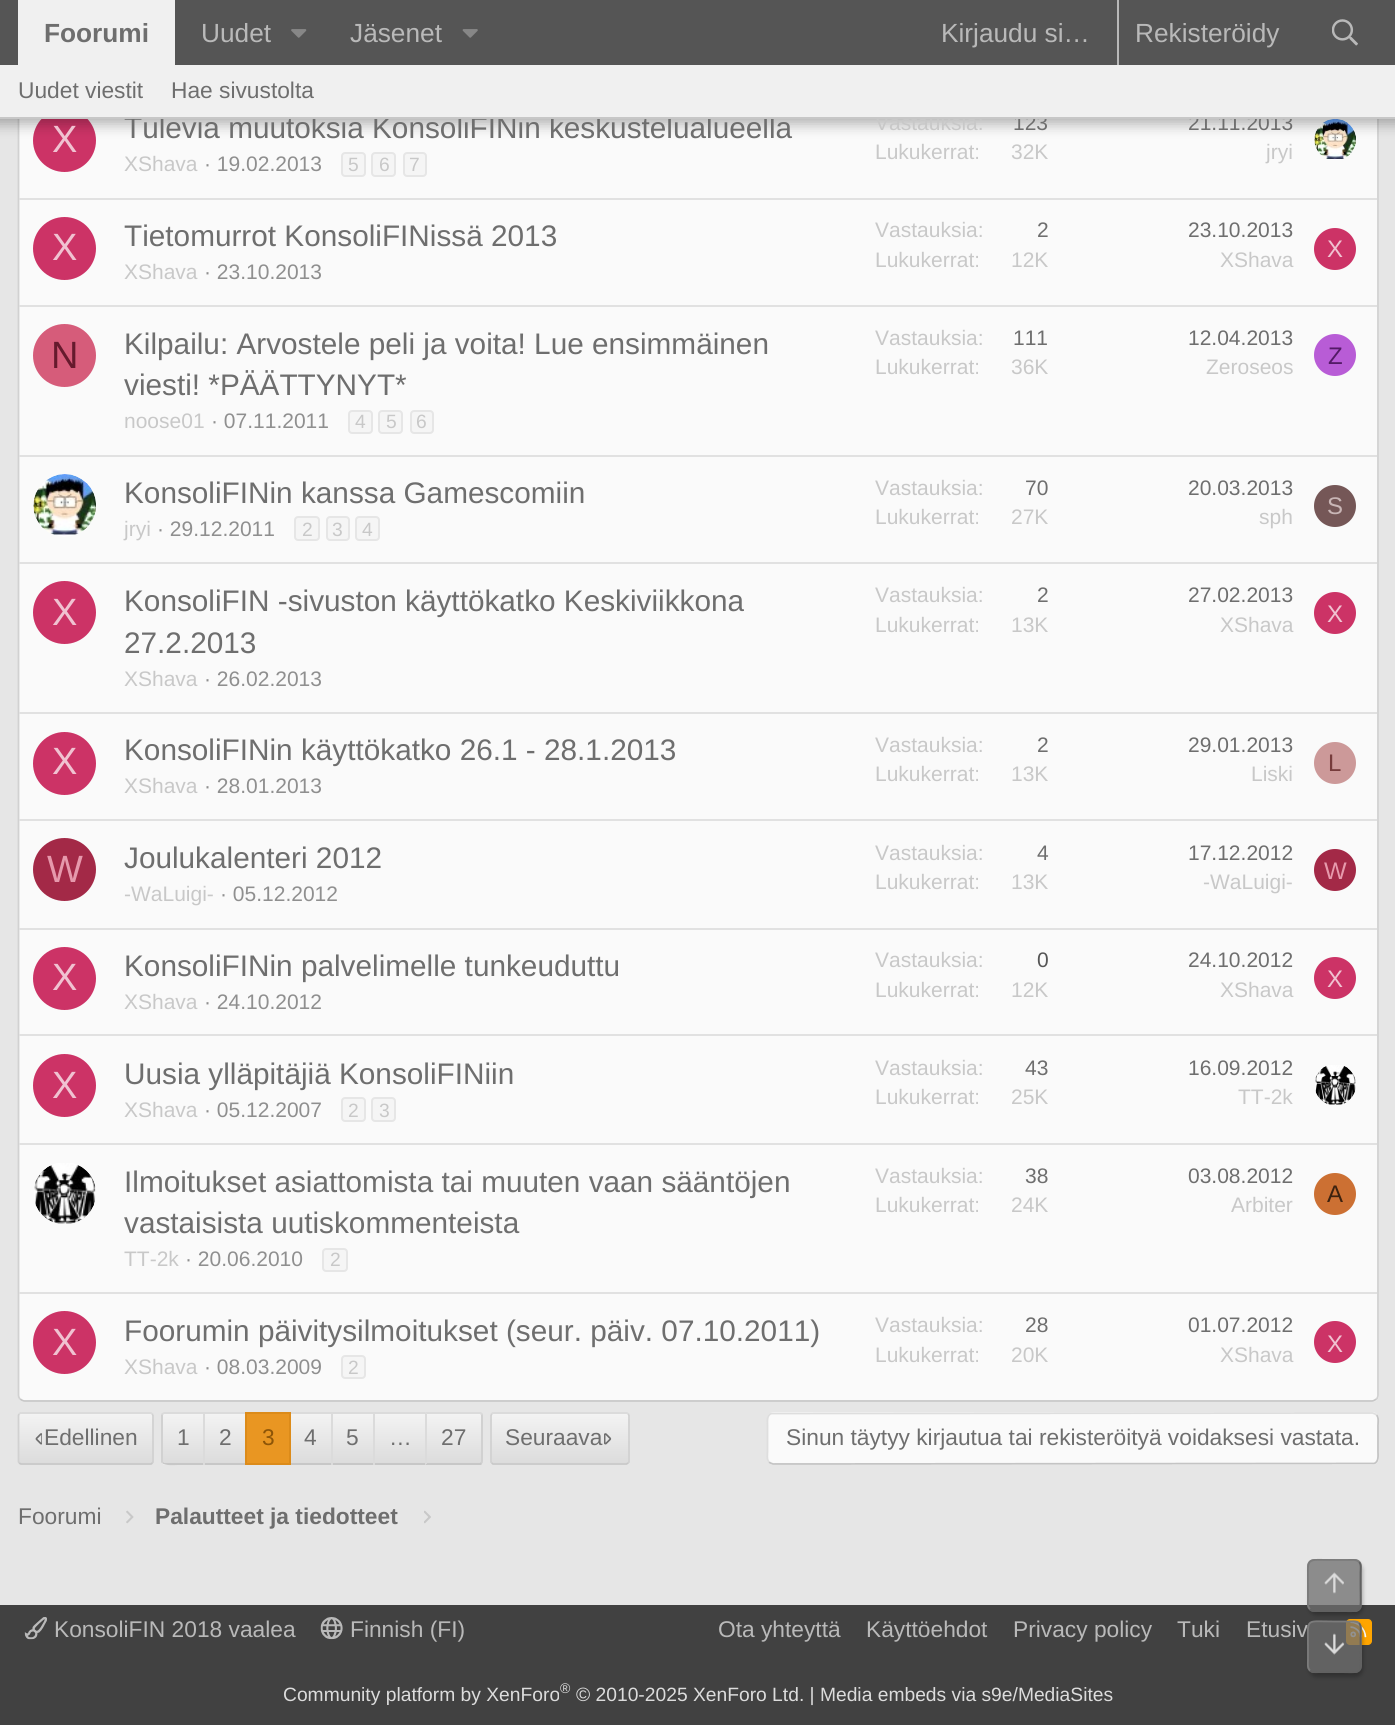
#include <cairo.h>
#include <math.h>
#include <stddef.h>

static cairo_t *ctx;

static void use_color(int r, int g, int b) {
    cairo_set_source_rgb(ctx, r / 255.0, g / 255.0, b / 255.0);
}

static void round_rect(double x, double y, double w, double h, double r) {
    cairo_new_sub_path(ctx);
    cairo_arc(ctx, x + w - r, y + h - r, r, 0, M_PI / 2);
    cairo_arc(ctx, x + r, y + h - r, r, M_PI / 2, M_PI);
    cairo_arc(ctx, x + r, y + r, r, M_PI, 1.5 * M_PI);
    cairo_arc(ctx, x + w - r, y + r, r, 1.5 * M_PI, 2 * M_PI);
    cairo_close_path(ctx);
}

static void shadow(double x, double y, double w, double h, double r, double blur, double alpha) {
    cairo_push_group_with_content(ctx, CAIRO_CONTENT_ALPHA);
    cairo_set_operator(ctx, CAIRO_OPERATOR_SOURCE);
    for (int i = 15; i >= -15 && fmin(w, h) + blur * i / 3 > 0; i -= 2) {
        double e = blur * i / 6;
        cairo_set_source_rgba(ctx, 0, 0, 0, alpha * erfc((i - 1) / 8.5) / 2);
        round_rect(x - e, y - e, w + 2 * e, h + 2 * e, fmax(0, fmin(r + e + blur * .6, fmin(w, h) / 2 + e)));
        cairo_fill(ctx);
    }
    cairo_pattern_t *soft = cairo_pop_group(ctx);
    cairo_mask(ctx, soft);
    cairo_pattern_destroy(soft);
}

static void picture(const char *path, double x, double y, double w, double h) {
    cairo_surface_t *image = cairo_image_surface_create_from_png(path);
    cairo_save(ctx);
    cairo_set_source_surface(ctx, image, x, y);
    cairo_rectangle(ctx, x, y, w, h);
    cairo_fill(ctx);
    cairo_restore(ctx);
    cairo_surface_destroy(image);
}

int main(void) {
    cairo_surface_t *surface = cairo_image_surface_create(CAIRO_FORMAT_RGB24, 1395, 1725);
    ctx = cairo_create(surface);
    cairo_font_options_t *options = cairo_font_options_create();
    cairo_font_options_set_hint_metrics(options, CAIRO_HINT_METRICS_OFF);
    cairo_font_options_set_hint_style(options, CAIRO_HINT_STYLE_NONE);
    cairo_set_font_options(ctx, options);
    cairo_set_miter_limit(ctx, 4);
    cairo_pattern_t *gradient;
    use_color(230, 230, 230);
    cairo_paint(ctx);
    use_color(250, 250, 250);
    round_rect(18, -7, 1361, 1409, 7);
    cairo_fill(ctx);
    cairo_new_path(ctx);
    cairo_move_to(ctx, 1376.5, -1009);
    cairo_curve_to(ctx, 1377.5, -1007.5, 1378, -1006, 1378, -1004.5);
    cairo_line_to(ctx, 1378, 1395);
    cairo_curve_to(ctx, 1378, 1396.5, 1377.5, 1398, 1376.5, 1399);
    use_color(209, 209, 209);
    cairo_set_line_width(ctx, 1.8);
    cairo_stroke(ctx);
    cairo_new_path(ctx);
    cairo_move_to(ctx, 1376.5, 1399);
    cairo_curve_to(ctx, 1375, 1400, 1373.5, 1401, 1372, 1401);
    cairo_line_to(ctx, 24.5, 1401);
    cairo_curve_to(ctx, 23, 1401, 21.5, 1400, 20, 1399);
    use_color(199, 199, 199);
    cairo_stroke(ctx);
    cairo_new_path(ctx);
    cairo_move_to(ctx, 20, 1399);
    cairo_curve_to(ctx, 19, 1398, 18.5, 1396.5, 18.5, 1395);
    cairo_line_to(ctx, 18.5, -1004.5);
    cairo_curve_to(ctx, 18.5, -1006, 19, -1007.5, 20, -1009);
    use_color(209, 209, 209);
    cairo_stroke(ctx);
    use_color(204, 51, 102);
    cairo_arc(ctx, 64.5, 140.5, 31.5, 0, 2 * M_PI);
    cairo_fill(ctx);
    picture("img4.png", 1314, 119, 42, 41);
    use_color(0, 0, 0);
    shadow(-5, -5, 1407, 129, 0, 7, 0.3);
    use_color(85, 85, 85);
    cairo_rectangle(ctx, 0, 0, 1395, 65);
    cairo_fill(ctx);
    use_color(240, 240, 240);
    cairo_rectangle(ctx, 18, 0, 157, 65);
    cairo_fill(ctx);
    cairo_select_font_face(ctx, "Liberation Sans", CAIRO_FONT_SLANT_NORMAL, CAIRO_FONT_WEIGHT_BOLD);
    cairo_set_font_size(ctx, 26.25);
    use_color(110, 110, 110);
    cairo_move_to(ctx, 44, 42);
    cairo_show_text(ctx, "Foorumi");
    cairo_select_font_face(ctx, "Liberation Sans", CAIRO_FONT_SLANT_NORMAL, CAIRO_FONT_WEIGHT_NORMAL);
    use_color(185, 185, 185);
    cairo_move_to(ctx, 201, 42);
    cairo_show_text(ctx, "Uudet");
    picture("img1.png", 291, 29, 16, 9);
    cairo_move_to(ctx, 350, 42);
    cairo_show_text(ctx, "Jäsenet");
    picture("img2.png", 462, 29, 16, 9);
    cairo_move_to(ctx, 941, 42);
    cairo_show_text(ctx, "Kirjaudu si…");
    cairo_rectangle(ctx, 1117, 0, 2, 65);
    cairo_fill(ctx);
    cairo_move_to(ctx, 1135, 42);
    cairo_show_text(ctx, "Rekisteröidy");
    picture("img3.png", 1332, 19, 26, 27);
    cairo_set_font_size(ctx, 29.75);
    use_color(110, 110, 110);
    cairo_move_to(ctx, 124, 138);
    cairo_show_text(ctx, "Tulevia muutoksia KonsoliFINin keskustelualueella");
    cairo_set_font_size(ctx, 21);
    use_color(200, 200, 200);
    cairo_move_to(ctx, 875, 130);
    cairo_show_text(ctx, "Vastauksia:");
    use_color(110, 110, 110);
    cairo_move_to(ctx, 1013, 130);
    cairo_show_text(ctx, "123");
    cairo_move_to(ctx, 1188, 130);
    cairo_show_text(ctx, "21.11.2013");
    use_color(240, 240, 240);
    cairo_rectangle(ctx, 0, 65, 1395, 52);
    cairo_fill(ctx);
    use_color(199, 199, 199);
    cairo_rectangle(ctx, 0, 117, 1395, 2);
    cairo_fill(ctx);
    cairo_set_font_size(ctx, 22.75);
    use_color(110, 110, 110);
    cairo_move_to(ctx, 18, 98);
    cairo_show_text(ctx, "Uudet viestit");
    cairo_move_to(ctx, 171, 98);
    cairo_show_text(ctx, "Hae sivustolta");
    cairo_set_font_size(ctx, 38);
    use_color(240, 194, 209);
    cairo_move_to(ctx, 52, 152);
    cairo_show_text(ctx, "X");
    cairo_set_font_size(ctx, 21);
    use_color(200, 200, 200);
    cairo_move_to(ctx, 124, 171);
    cairo_show_text(ctx, "XShava");
    use_color(143, 143, 143);
    cairo_move_to(ctx, 204, 171);
    cairo_show_text(ctx, "· 19.02.2013");
    use_color(245, 245, 245);
    round_rect(342, 153, 23, 23, 3);
    cairo_fill_preserve(ctx);
    use_color(230, 230, 230);
    cairo_set_line_width(ctx, 2);
    cairo_stroke(ctx);
    cairo_set_font_size(ctx, 19.25);
    use_color(200, 200, 200);
    cairo_move_to(ctx, 348, 171);
    cairo_show_text(ctx, "5");
    use_color(245, 245, 245);
    round_rect(372, 153, 23, 23, 3);
    cairo_fill_preserve(ctx);
    use_color(230, 230, 230);
    cairo_stroke(ctx);
    use_color(200, 200, 200);
    cairo_move_to(ctx, 379, 171);
    cairo_show_text(ctx, "6");
    use_color(245, 245, 245);
    round_rect(404, 153, 22, 23, 3);
    cairo_fill_preserve(ctx);
    use_color(230, 230, 230);
    cairo_stroke(ctx);
    use_color(200, 200, 200);
    cairo_move_to(ctx, 409, 171);
    cairo_show_text(ctx, "7");
    cairo_set_font_size(ctx, 21);
    cairo_move_to(ctx, 875, 159);
    cairo_show_text(ctx, "Lukukerrat:");
    cairo_move_to(ctx, 1011, 159);
    cairo_show_text(ctx, "32K");
    cairo_move_to(ctx, 1266, 159);
    cairo_show_text(ctx, "jryi");
    use_color(225, 225, 225);
    cairo_rectangle(ctx, 19, 198, 1358, 2);
    cairo_fill(ctx);
    use_color(204, 51, 102);
    cairo_arc(ctx, 64.5, 248.5, 31.5, 0, 2 * M_PI);
    cairo_fill(ctx);
    cairo_set_font_size(ctx, 38);
    use_color(240, 194, 209);
    cairo_move_to(ctx, 52, 260);
    cairo_show_text(ctx, "X");
    cairo_set_font_size(ctx, 29.75);
    use_color(110, 110, 110);
    cairo_move_to(ctx, 124, 246);
    cairo_show_text(ctx, "Tietomurrot KonsoliFINissä 2013");
    cairo_set_font_size(ctx, 21);
    use_color(200, 200, 200);
    cairo_move_to(ctx, 124, 279);
    cairo_show_text(ctx, "XShava");
    use_color(143, 143, 143);
    cairo_move_to(ctx, 204, 279);
    cairo_show_text(ctx, "· 23.10.2013");
    use_color(200, 200, 200);
    cairo_move_to(ctx, 875, 237);
    cairo_show_text(ctx, "Vastauksia:");
    use_color(110, 110, 110);
    cairo_move_to(ctx, 1037, 237);
    cairo_show_text(ctx, "2");
    use_color(200, 200, 200);
    cairo_move_to(ctx, 875, 267);
    cairo_show_text(ctx, "Lukukerrat:");
    cairo_move_to(ctx, 1011, 267);
    cairo_show_text(ctx, "12K");
    use_color(110, 110, 110);
    cairo_move_to(ctx, 1188, 237);
    cairo_show_text(ctx, "23.10.2013");
    use_color(200, 200, 200);
    cairo_move_to(ctx, 1220, 267);
    cairo_show_text(ctx, "XShava");
    use_color(204, 51, 102);
    cairo_new_path(ctx);
    cairo_arc(ctx, 1335, 249, 21, 0, 2 * M_PI);
    cairo_fill(ctx);
    cairo_set_font_size(ctx, 24);
    use_color(240, 194, 209);
    cairo_move_to(ctx, 1327, 257);
    cairo_show_text(ctx, "X");
    use_color(225, 225, 225);
    cairo_rectangle(ctx, 19, 305, 1358, 2);
    cairo_fill(ctx);
    use_color(214, 92, 122);
    cairo_arc(ctx, 64.5, 355.5, 31.5, 0, 2 * M_PI);
    cairo_fill(ctx);
    cairo_set_font_size(ctx, 38);
    use_color(102, 26, 45);
    cairo_move_to(ctx, 51, 368);
    cairo_show_text(ctx, "N");
    cairo_set_font_size(ctx, 29.75);
    use_color(110, 110, 110);
    cairo_move_to(ctx, 124, 354);
    cairo_show_text(ctx, "Kilpailu: Arvostele peli ja voita! Lue ensimmäinen");
    cairo_move_to(ctx, 124, 395);
    cairo_show_text(ctx, "viesti! *PÄÄTTYNYT*");
    cairo_set_font_size(ctx, 21);
    use_color(200, 200, 200);
    cairo_move_to(ctx, 124, 428);
    cairo_show_text(ctx, "noose01");
    use_color(143, 143, 143);
    cairo_move_to(ctx, 211, 428);
    cairo_show_text(ctx, "· 07.11.2011");
    use_color(245, 245, 245);
    round_rect(349, 411, 23, 22, 3);
    cairo_fill_preserve(ctx);
    use_color(230, 230, 230);
    cairo_stroke(ctx);
    cairo_set_font_size(ctx, 19.25);
    use_color(200, 200, 200);
    cairo_move_to(ctx, 355, 428);
    cairo_show_text(ctx, "4");
    use_color(245, 245, 245);
    round_rect(379, 411, 23, 22, 3);
    cairo_fill_preserve(ctx);
    use_color(230, 230, 230);
    cairo_stroke(ctx);
    use_color(200, 200, 200);
    cairo_move_to(ctx, 386, 428);
    cairo_show_text(ctx, "5");
    use_color(245, 245, 245);
    round_rect(411, 411, 22, 22, 3);
    cairo_fill_preserve(ctx);
    use_color(230, 230, 230);
    cairo_stroke(ctx);
    use_color(200, 200, 200);
    cairo_move_to(ctx, 416, 428);
    cairo_show_text(ctx, "6");
    cairo_set_font_size(ctx, 21);
    cairo_move_to(ctx, 875, 345);
    cairo_show_text(ctx, "Vastauksia:");
    use_color(110, 110, 110);
    cairo_move_to(ctx, 1013, 345);
    cairo_show_text(ctx, "111");
    use_color(200, 200, 200);
    cairo_move_to(ctx, 875, 374);
    cairo_show_text(ctx, "Lukukerrat:");
    cairo_move_to(ctx, 1011, 374);
    cairo_show_text(ctx, "36K");
    use_color(110, 110, 110);
    cairo_move_to(ctx, 1188, 345);
    cairo_show_text(ctx, "12.04.2013");
    use_color(200, 200, 200);
    cairo_move_to(ctx, 1206, 374);
    cairo_show_text(ctx, "Zeroseos");
    use_color(184, 92, 214);
    cairo_new_path(ctx);
    cairo_arc(ctx, 1335, 355, 21, 0, 2 * M_PI);
    cairo_fill(ctx);
    cairo_set_font_size(ctx, 24);
    use_color(83, 26, 102);
    cairo_move_to(ctx, 1328, 364);
    cairo_show_text(ctx, "Z");
    use_color(225, 225, 225);
    cairo_rectangle(ctx, 19, 455, 1358, 2);
    cairo_fill(ctx);
    picture("img5.png", 33, 474, 63, 63);
    cairo_set_font_size(ctx, 29.75);
    use_color(110, 110, 110);
    cairo_move_to(ctx, 124, 503);
    cairo_show_text(ctx, "KonsoliFINin kanssa Gamescomiin");
    cairo_set_font_size(ctx, 21);
    use_color(200, 200, 200);
    cairo_move_to(ctx, 124, 536);
    cairo_show_text(ctx, "jryi");
    use_color(143, 143, 143);
    cairo_move_to(ctx, 157, 536);
    cairo_show_text(ctx, "· 29.12.2011");
    use_color(245, 245, 245);
    round_rect(295, 517, 24, 23, 3);
    cairo_fill_preserve(ctx);
    use_color(230, 230, 230);
    cairo_stroke(ctx);
    cairo_set_font_size(ctx, 19.25);
    use_color(200, 200, 200);
    cairo_move_to(ctx, 302, 536);
    cairo_show_text(ctx, "2");
    use_color(245, 245, 245);
    round_rect(327, 517, 22, 23, 3);
    cairo_fill_preserve(ctx);
    use_color(230, 230, 230);
    cairo_stroke(ctx);
    use_color(200, 200, 200);
    cairo_move_to(ctx, 332, 536);
    cairo_show_text(ctx, "3");
    use_color(245, 245, 245);
    round_rect(356, 517, 23, 23, 3);
    cairo_fill_preserve(ctx);
    use_color(230, 230, 230);
    cairo_stroke(ctx);
    use_color(200, 200, 200);
    cairo_move_to(ctx, 362, 536);
    cairo_show_text(ctx, "4");
    cairo_set_font_size(ctx, 21);
    cairo_move_to(ctx, 875, 495);
    cairo_show_text(ctx, "Vastauksia:");
    use_color(110, 110, 110);
    cairo_move_to(ctx, 1025, 495);
    cairo_show_text(ctx, "70");
    use_color(200, 200, 200);
    cairo_move_to(ctx, 875, 524);
    cairo_show_text(ctx, "Lukukerrat:");
    cairo_move_to(ctx, 1011, 524);
    cairo_show_text(ctx, "27K");
    use_color(110, 110, 110);
    cairo_move_to(ctx, 1188, 495);
    cairo_show_text(ctx, "20.03.2013");
    use_color(200, 200, 200);
    cairo_move_to(ctx, 1259, 524);
    cairo_show_text(ctx, "sph");
    use_color(117, 87, 87);
    cairo_new_path(ctx);
    cairo_arc(ctx, 1335, 506, 21, 0, 2 * M_PI);
    cairo_fill(ctx);
    cairo_set_font_size(ctx, 24);
    use_color(201, 182, 182);
    cairo_move_to(ctx, 1327, 514);
    cairo_show_text(ctx, "S");
    use_color(225, 225, 225);
    cairo_rectangle(ctx, 19, 562, 1358, 2);
    cairo_fill(ctx);
    use_color(204, 51, 102);
    cairo_arc(ctx, 64.5, 612.5, 31.5, 0, 2 * M_PI);
    cairo_fill(ctx);
    cairo_set_font_size(ctx, 38);
    use_color(240, 194, 209);
    cairo_move_to(ctx, 52, 625);
    cairo_show_text(ctx, "X");
    cairo_set_font_size(ctx, 29.75);
    use_color(110, 110, 110);
    cairo_move_to(ctx, 124, 611);
    cairo_show_text(ctx, "KonsoliFIN -sivuston käyttökatko Keskiviikkona");
    cairo_move_to(ctx, 124, 653);
    cairo_show_text(ctx, "27.2.2013");
    cairo_set_font_size(ctx, 21);
    use_color(200, 200, 200);
    cairo_move_to(ctx, 124, 686);
    cairo_show_text(ctx, "XShava");
    use_color(143, 143, 143);
    cairo_move_to(ctx, 204, 686);
    cairo_show_text(ctx, "· 26.02.2013");
    use_color(200, 200, 200);
    cairo_move_to(ctx, 875, 602);
    cairo_show_text(ctx, "Vastauksia:");
    use_color(110, 110, 110);
    cairo_move_to(ctx, 1037, 602);
    cairo_show_text(ctx, "2");
    use_color(200, 200, 200);
    cairo_move_to(ctx, 875, 632);
    cairo_show_text(ctx, "Lukukerrat:");
    cairo_move_to(ctx, 1011, 632);
    cairo_show_text(ctx, "13K");
    use_color(110, 110, 110);
    cairo_move_to(ctx, 1188, 602);
    cairo_show_text(ctx, "27.02.2013");
    use_color(200, 200, 200);
    cairo_move_to(ctx, 1220, 632);
    cairo_show_text(ctx, "XShava");
    use_color(204, 51, 102);
    cairo_new_path(ctx);
    cairo_arc(ctx, 1335, 613, 21, 0, 2 * M_PI);
    cairo_fill(ctx);
    cairo_set_font_size(ctx, 24);
    use_color(240, 194, 209);
    cairo_move_to(ctx, 1327, 622);
    cairo_show_text(ctx, "X");
    use_color(225, 225, 225);
    cairo_rectangle(ctx, 19, 712, 1358, 2);
    cairo_fill(ctx);
    use_color(204, 51, 102);
    cairo_arc(ctx, 64.5, 763.5, 31.5, 0, 2 * M_PI);
    cairo_fill(ctx);
    cairo_set_font_size(ctx, 38);
    use_color(240, 194, 209);
    cairo_move_to(ctx, 52, 774);
    cairo_show_text(ctx, "X");
    cairo_set_font_size(ctx, 29.75);
    use_color(110, 110, 110);
    cairo_move_to(ctx, 124, 760);
    cairo_show_text(ctx, "KonsoliFINin käyttökatko 26.1 - 28.1.2013");
    cairo_set_font_size(ctx, 21);
    use_color(200, 200, 200);
    cairo_move_to(ctx, 124, 793);
    cairo_show_text(ctx, "XShava");
    use_color(143, 143, 143);
    cairo_move_to(ctx, 204, 793);
    cairo_show_text(ctx, "· 28.01.2013");
    use_color(200, 200, 200);
    cairo_move_to(ctx, 875, 752);
    cairo_show_text(ctx, "Vastauksia:");
    use_color(110, 110, 110);
    cairo_move_to(ctx, 1037, 752);
    cairo_show_text(ctx, "2");
    use_color(200, 200, 200);
    cairo_move_to(ctx, 875, 781);
    cairo_show_text(ctx, "Lukukerrat:");
    cairo_move_to(ctx, 1011, 781);
    cairo_show_text(ctx, "13K");
    use_color(110, 110, 110);
    cairo_move_to(ctx, 1188, 752);
    cairo_show_text(ctx, "29.01.2013");
    use_color(200, 200, 200);
    cairo_move_to(ctx, 1251, 781);
    cairo_show_text(ctx, "Liski");
    use_color(204, 153, 153);
    cairo_new_path(ctx);
    cairo_arc(ctx, 1335, 763, 21, 0, 2 * M_PI);
    cairo_fill(ctx);
    cairo_set_font_size(ctx, 24);
    use_color(119, 60, 60);
    cairo_move_to(ctx, 1328, 771);
    cairo_show_text(ctx, "L");
    use_color(225, 225, 225);
    cairo_rectangle(ctx, 19, 819, 1358, 2);
    cairo_fill(ctx);
    use_color(163, 41, 71);
    cairo_arc(ctx, 64.5, 869.5, 31.5, 0, 2 * M_PI);
    cairo_fill(ctx);
    cairo_set_font_size(ctx, 38);
    use_color(230, 153, 172);
    cairo_move_to(ctx, 47, 882);
    cairo_show_text(ctx, "W");
    cairo_set_font_size(ctx, 29.75);
    use_color(110, 110, 110);
    cairo_move_to(ctx, 124, 868);
    cairo_show_text(ctx, "Joulukalenteri 2012");
    cairo_set_font_size(ctx, 21);
    use_color(200, 200, 200);
    cairo_move_to(ctx, 124, 901);
    cairo_show_text(ctx, "-WaLuigi-");
    use_color(143, 143, 143);
    cairo_move_to(ctx, 220, 901);
    cairo_show_text(ctx, "· 05.12.2012");
    use_color(200, 200, 200);
    cairo_move_to(ctx, 875, 860);
    cairo_show_text(ctx, "Vastauksia:");
    use_color(110, 110, 110);
    cairo_move_to(ctx, 1037, 860);
    cairo_show_text(ctx, "4");
    use_color(200, 200, 200);
    cairo_move_to(ctx, 875, 889);
    cairo_show_text(ctx, "Lukukerrat:");
    cairo_move_to(ctx, 1011, 889);
    cairo_show_text(ctx, "13K");
    use_color(110, 110, 110);
    cairo_move_to(ctx, 1188, 860);
    cairo_show_text(ctx, "17.12.2012");
    use_color(200, 200, 200);
    cairo_move_to(ctx, 1203, 889);
    cairo_show_text(ctx, "-WaLuigi-");
    use_color(163, 41, 71);
    cairo_new_path(ctx);
    cairo_arc(ctx, 1335, 870, 21, 0, 2 * M_PI);
    cairo_fill(ctx);
    cairo_set_font_size(ctx, 24);
    use_color(230, 153, 172);
    cairo_move_to(ctx, 1324, 879);
    cairo_show_text(ctx, "W");
    use_color(225, 225, 225);
    cairo_rectangle(ctx, 19, 928, 1358, 2);
    cairo_fill(ctx);
    use_color(204, 51, 102);
    cairo_arc(ctx, 64.5, 978.5, 31.5, 0, 2 * M_PI);
    cairo_fill(ctx);
    cairo_set_font_size(ctx, 38);
    use_color(240, 194, 209);
    cairo_move_to(ctx, 52, 990);
    cairo_show_text(ctx, "X");
    cairo_set_font_size(ctx, 29.75);
    use_color(110, 110, 110);
    cairo_move_to(ctx, 124, 976);
    cairo_show_text(ctx, "KonsoliFINin palvelimelle tunkeuduttu");
    cairo_set_font_size(ctx, 21);
    use_color(200, 200, 200);
    cairo_move_to(ctx, 124, 1009);
    cairo_show_text(ctx, "XShava");
    use_color(143, 143, 143);
    cairo_move_to(ctx, 204, 1009);
    cairo_show_text(ctx, "· 24.10.2012");
    use_color(200, 200, 200);
    cairo_move_to(ctx, 875, 967);
    cairo_show_text(ctx, "Vastauksia:");
    use_color(85, 85, 85);
    cairo_move_to(ctx, 1037, 967);
    cairo_show_text(ctx, "0");
    use_color(200, 200, 200);
    cairo_move_to(ctx, 875, 997);
    cairo_show_text(ctx, "Lukukerrat:");
    cairo_move_to(ctx, 1011, 997);
    cairo_show_text(ctx, "12K");
    use_color(110, 110, 110);
    cairo_move_to(ctx, 1188, 967);
    cairo_show_text(ctx, "24.10.2012");
    use_color(200, 200, 200);
    cairo_move_to(ctx, 1220, 997);
    cairo_show_text(ctx, "XShava");
    use_color(204, 51, 102);
    cairo_new_path(ctx);
    cairo_arc(ctx, 1335, 978, 21, 0, 2 * M_PI);
    cairo_fill(ctx);
    cairo_set_font_size(ctx, 24);
    use_color(240, 194, 209);
    cairo_move_to(ctx, 1327, 987);
    cairo_show_text(ctx, "X");
    use_color(225, 225, 225);
    cairo_rectangle(ctx, 19, 1034, 1358, 2);
    cairo_fill(ctx);
    use_color(204, 51, 102);
    cairo_arc(ctx, 64.5, 1085.5, 31.5, 0, 2 * M_PI);
    cairo_fill(ctx);
    cairo_set_font_size(ctx, 38);
    use_color(240, 194, 209);
    cairo_move_to(ctx, 52, 1098);
    cairo_show_text(ctx, "X");
    cairo_set_font_size(ctx, 29.75);
    use_color(110, 110, 110);
    cairo_move_to(ctx, 124, 1084);
    cairo_show_text(ctx, "Uusia ylläpitäjiä KonsoliFINiin");
    cairo_set_font_size(ctx, 21);
    use_color(200, 200, 200);
    cairo_move_to(ctx, 124, 1117);
    cairo_show_text(ctx, "XShava");
    use_color(143, 143, 143);
    cairo_move_to(ctx, 204, 1117);
    cairo_show_text(ctx, "· 05.12.2007");
    use_color(245, 245, 245);
    round_rect(342, 1098, 23, 23, 3);
    cairo_fill_preserve(ctx);
    use_color(230, 230, 230);
    cairo_stroke(ctx);
    cairo_set_font_size(ctx, 19.25);
    use_color(200, 200, 200);
    cairo_move_to(ctx, 348, 1117);
    cairo_show_text(ctx, "2");
    use_color(245, 245, 245);
    round_rect(372, 1098, 23, 23, 3);
    cairo_fill_preserve(ctx);
    use_color(230, 230, 230);
    cairo_stroke(ctx);
    use_color(200, 200, 200);
    cairo_move_to(ctx, 379, 1117);
    cairo_show_text(ctx, "3");
    cairo_set_font_size(ctx, 21);
    cairo_move_to(ctx, 875, 1075);
    cairo_show_text(ctx, "Vastauksia:");
    use_color(110, 110, 110);
    cairo_move_to(ctx, 1025, 1075);
    cairo_show_text(ctx, "43");
    use_color(200, 200, 200);
    cairo_move_to(ctx, 875, 1104);
    cairo_show_text(ctx, "Lukukerrat:");
    cairo_move_to(ctx, 1011, 1104);
    cairo_show_text(ctx, "25K");
    use_color(110, 110, 110);
    cairo_move_to(ctx, 1188, 1075);
    cairo_show_text(ctx, "16.09.2012");
    use_color(200, 200, 200);
    cairo_move_to(ctx, 1238, 1104);
    cairo_show_text(ctx, "TT-2k");
    picture("img6.png", 1315, 1065, 41, 40);
    use_color(225, 225, 225);
    cairo_rectangle(ctx, 19, 1143, 1358, 2);
    cairo_fill(ctx);
    picture("img7.png", 34, 1163, 62, 61);
    cairo_set_font_size(ctx, 29.75);
    use_color(110, 110, 110);
    cairo_move_to(ctx, 124, 1192);
    cairo_show_text(ctx, "Ilmoitukset asiattomista tai muuten vaan sääntöjen");
    cairo_move_to(ctx, 124, 1233);
    cairo_show_text(ctx, "vastaisista uutiskommenteista");
    cairo_set_font_size(ctx, 21);
    use_color(200, 200, 200);
    cairo_move_to(ctx, 124, 1266);
    cairo_show_text(ctx, "TT-2k");
    use_color(143, 143, 143);
    cairo_move_to(ctx, 185, 1266);
    cairo_show_text(ctx, "· 20.06.2010");
    use_color(245, 245, 245);
    round_rect(323, 1249, 24, 22, 3);
    cairo_fill_preserve(ctx);
    use_color(230, 230, 230);
    cairo_stroke(ctx);
    cairo_set_font_size(ctx, 19.25);
    use_color(200, 200, 200);
    cairo_move_to(ctx, 330, 1266);
    cairo_show_text(ctx, "2");
    cairo_set_font_size(ctx, 21);
    cairo_move_to(ctx, 875, 1183);
    cairo_show_text(ctx, "Vastauksia:");
    use_color(110, 110, 110);
    cairo_move_to(ctx, 1025, 1183);
    cairo_show_text(ctx, "38");
    use_color(200, 200, 200);
    cairo_move_to(ctx, 875, 1212);
    cairo_show_text(ctx, "Lukukerrat:");
    cairo_move_to(ctx, 1011, 1212);
    cairo_show_text(ctx, "24K");
    use_color(110, 110, 110);
    cairo_move_to(ctx, 1188, 1183);
    cairo_show_text(ctx, "03.08.2012");
    use_color(200, 200, 200);
    cairo_move_to(ctx, 1231, 1212);
    cairo_show_text(ctx, "Arbiter");
    use_color(204, 112, 51);
    cairo_new_path(ctx);
    cairo_arc(ctx, 1335, 1194, 21, 0, 2 * M_PI);
    cairo_fill(ctx);
    cairo_set_font_size(ctx, 24);
    use_color(61, 34, 15);
    cairo_move_to(ctx, 1327, 1202);
    cairo_show_text(ctx, "A");
    use_color(225, 225, 225);
    cairo_rectangle(ctx, 19, 1292, 1358, 2);
    cairo_fill(ctx);
    use_color(204, 51, 102);
    cairo_arc(ctx, 64.5, 1342.5, 31.5, 0, 2 * M_PI);
    cairo_fill(ctx);
    cairo_set_font_size(ctx, 38);
    use_color(240, 194, 209);
    cairo_move_to(ctx, 52, 1355);
    cairo_show_text(ctx, "X");
    cairo_set_font_size(ctx, 29.75);
    use_color(110, 110, 110);
    cairo_move_to(ctx, 124, 1341);
    cairo_show_text(ctx, "Foorumin päivitysilmoitukset (seur. päiv. 07.10.2011)");
    cairo_set_font_size(ctx, 21);
    use_color(200, 200, 200);
    cairo_move_to(ctx, 124, 1374);
    cairo_show_text(ctx, "XShava");
    use_color(143, 143, 143);
    cairo_move_to(ctx, 204, 1374);
    cairo_show_text(ctx, "· 08.03.2009");
    use_color(245, 245, 245);
    round_rect(342, 1356, 23, 22, 3);
    cairo_fill_preserve(ctx);
    use_color(230, 230, 230);
    cairo_stroke(ctx);
    cairo_set_font_size(ctx, 19.25);
    use_color(200, 200, 200);
    cairo_move_to(ctx, 348, 1374);
    cairo_show_text(ctx, "2");
    cairo_set_font_size(ctx, 21);
    cairo_move_to(ctx, 875, 1332);
    cairo_show_text(ctx, "Vastauksia:");
    use_color(110, 110, 110);
    cairo_move_to(ctx, 1025, 1332);
    cairo_show_text(ctx, "28");
    use_color(200, 200, 200);
    cairo_move_to(ctx, 875, 1362);
    cairo_show_text(ctx, "Lukukerrat:");
    cairo_move_to(ctx, 1011, 1362);
    cairo_show_text(ctx, "20K");
    use_color(110, 110, 110);
    cairo_move_to(ctx, 1188, 1332);
    cairo_show_text(ctx, "01.07.2012");
    use_color(200, 200, 200);
    cairo_move_to(ctx, 1220, 1362);
    cairo_show_text(ctx, "XShava");
    use_color(204, 51, 102);
    cairo_new_path(ctx);
    cairo_arc(ctx, 1335, 1342, 21, 0, 2 * M_PI);
    cairo_fill(ctx);
    cairo_set_font_size(ctx, 24);
    use_color(240, 194, 209);
    cairo_move_to(ctx, 1327, 1352);
    cairo_show_text(ctx, "X");
    cairo_save(ctx);
    round_rect(18, 1412, 136, 53, 4);
    cairo_clip(ctx);
    gradient = cairo_pattern_create_linear(86, 1414, 86, 1365);
    cairo_pattern_add_color_stop_rgba(gradient, 0, 0.863, 0.863, 0.863, 1);
    cairo_pattern_add_color_stop_rgba(gradient, 1, 0.953, 0.953, 0.953, 1);
    cairo_set_source(ctx, gradient);
    cairo_pattern_destroy(gradient);
    cairo_rectangle(ctx, 18, 1412, 136, 2);
    cairo_fill(ctx);
    cairo_restore(ctx);
    gradient = cairo_pattern_create_linear(86, 1463, 86, 1414);
    cairo_pattern_add_color_stop_rgba(gradient, 0, 0.863, 0.863, 0.863, 1);
    cairo_pattern_add_color_stop_rgba(gradient, 1, 0.953, 0.953, 0.953, 1);
    cairo_set_source(ctx, gradient);
    cairo_pattern_destroy(gradient);
    cairo_rectangle(ctx, 19, 1414, 135, 49);
    cairo_fill(ctx);
    cairo_new_path(ctx);
    cairo_move_to(ctx, 19, 1414);
    cairo_line_to(ctx, 20.5, 1413);
    cairo_line_to(ctx, 129, 1413);
    cairo_line_to(ctx, 150.5, 1413);
    cairo_line_to(ctx, 152.5, 1414);
    use_color(219, 219, 219);
    cairo_set_line_width(ctx, 1.8);
    cairo_stroke(ctx);
    cairo_new_path(ctx);
    cairo_move_to(ctx, 152.5, 1414);
    cairo_line_to(ctx, 153, 1415.5);
    cairo_line_to(ctx, 153, 1461.5);
    cairo_line_to(ctx, 152.5, 1463);
    use_color(209, 209, 209);
    cairo_stroke(ctx);
    cairo_new_path(ctx);
    cairo_move_to(ctx, 152.5, 1463);
    cairo_line_to(ctx, 151, 1464);
    cairo_line_to(ctx, 42.5, 1464);
    cairo_line_to(ctx, 21, 1464);
    cairo_line_to(ctx, 19, 1463);
    use_color(199, 199, 199);
    cairo_stroke(ctx);
    cairo_new_path(ctx);
    cairo_move_to(ctx, 19, 1463);
    cairo_line_to(ctx, 18.5, 1461.5);
    cairo_line_to(ctx, 18.5, 1415.5);
    cairo_line_to(ctx, 19, 1414);
    use_color(209, 209, 209);
    cairo_stroke(ctx);
    picture("img8.png", 35, 1433, 7, 12);
    cairo_set_font_size(ctx, 22.75);
    use_color(110, 110, 110);
    cairo_move_to(ctx, 44, 1445);
    cairo_show_text(ctx, "Edellinen");
    gradient = cairo_pattern_create_linear(183, 1463, 183, 1414);
    cairo_pattern_add_color_stop_rgba(gradient, 0, 0.863, 0.863, 0.863, 1);
    cairo_pattern_add_color_stop_rgba(gradient, 1, 0.953, 0.953, 0.953, 1);
    cairo_set_source(ctx, gradient);
    cairo_pattern_destroy(gradient);
    cairo_rectangle(ctx, 161, 1414, 42, 49);
    cairo_fill(ctx);
    cairo_save(ctx);
    cairo_new_path(ctx);
    cairo_move_to(ctx, 165, 1412);
    cairo_line_to(ctx, 203, 1412);
    cairo_line_to(ctx, 203, 1465);
    cairo_line_to(ctx, 165, 1465);
    cairo_curve_to(ctx, 163, 1465, 161, 1463, 161, 1461);
    cairo_line_to(ctx, 161, 1416);
    cairo_curve_to(ctx, 161, 1414, 163, 1412, 165, 1412);
    cairo_close_path(ctx);
    cairo_clip(ctx);
    gradient = cairo_pattern_create_linear(183, 1512, 183, 1463);
    cairo_pattern_add_color_stop_rgba(gradient, 0, 0.863, 0.863, 0.863, 1);
    cairo_pattern_add_color_stop_rgba(gradient, 1, 0.953, 0.953, 0.953, 1);
    cairo_set_source(ctx, gradient);
    cairo_pattern_destroy(gradient);
    cairo_rectangle(ctx, 161, 1463, 7, 2);
    cairo_fill(ctx);
    cairo_restore(ctx);
    use_color(219, 219, 219);
    cairo_new_path(ctx);
    cairo_move_to(ctx, 164, 1414);
    cairo_line_to(ctx, 163, 1415);
    cairo_line_to(ctx, 162, 1413);
    cairo_line_to(ctx, 164, 1412);
    cairo_line_to(ctx, 203, 1412);
    cairo_line_to(ctx, 203, 1414);
    cairo_close_path(ctx);
    cairo_fill(ctx);
    use_color(199, 199, 199);
    cairo_new_path(ctx);
    cairo_move_to(ctx, 203, 1465);
    cairo_line_to(ctx, 178, 1465);
    cairo_curve_to(ctx, 175, 1465, 165, 1466, 162, 1463);
    cairo_line_to(ctx, 163, 1462);
    cairo_line_to(ctx, 164, 1463);
    cairo_line_to(ctx, 203, 1463);
    cairo_close_path(ctx);
    cairo_fill(ctx);
    use_color(209, 209, 209);
    cairo_new_path(ctx);
    cairo_move_to(ctx, 161, 1415);
    cairo_line_to(ctx, 161, 1462);
    cairo_line_to(ctx, 162, 1463);
    cairo_line_to(ctx, 163, 1462);
    cairo_curve_to(ctx, 163, 1461, 163, 1416, 163, 1415);
    cairo_line_to(ctx, 162, 1413);
    cairo_close_path(ctx);
    cairo_fill(ctx);
    use_color(110, 110, 110);
    cairo_move_to(ctx, 177, 1445);
    cairo_show_text(ctx, "1");
    gradient = cairo_pattern_create_linear(225, 1463, 225, 1414);
    cairo_pattern_add_color_stop_rgba(gradient, 0, 0.863, 0.863, 0.863, 1);
    cairo_pattern_add_color_stop_rgba(gradient, 1, 0.953, 0.953, 0.953, 1);
    cairo_set_source(ctx, gradient);
    cairo_pattern_destroy(gradient);
    cairo_rectangle(ctx, 205, 1414, 40, 49);
    cairo_fill(ctx);
    use_color(219, 219, 219);
    cairo_rectangle(ctx, 203, 1412, 42, 2);
    cairo_fill(ctx);
    use_color(199, 199, 199);
    cairo_rectangle(ctx, 203, 1463, 42, 2);
    cairo_fill(ctx);
    use_color(219, 219, 219);
    cairo_rectangle(ctx, 203, 1412, 2, 53);
    cairo_fill(ctx);
    use_color(110, 110, 110);
    cairo_move_to(ctx, 219, 1445);
    cairo_show_text(ctx, "2");
    use_color(233, 150, 34);
    cairo_rectangle(ctx, 246, 1413, 44, 51);
    cairo_fill_preserve(ctx);
    use_color(220, 139, 26);
    cairo_set_line_width(ctx, 2);
    cairo_stroke(ctx);
    use_color(141, 85, 7);
    cairo_move_to(ctx, 262, 1445);
    cairo_show_text(ctx, "3");
    gradient = cairo_pattern_create_linear(311, 1463, 311, 1414);
    cairo_pattern_add_color_stop_rgba(gradient, 0, 0.863, 0.863, 0.863, 1);
    cairo_pattern_add_color_stop_rgba(gradient, 1, 0.953, 0.953, 0.953, 1);
    cairo_set_source(ctx, gradient);
    cairo_pattern_destroy(gradient);
    cairo_rectangle(ctx, 291, 1414, 40, 49);
    cairo_fill(ctx);
    use_color(219, 219, 219);
    cairo_rectangle(ctx, 291, 1412, 134, 2);
    cairo_fill(ctx);
    use_color(199, 199, 199);
    cairo_rectangle(ctx, 291, 1463, 134, 2);
    cairo_fill(ctx);
    use_color(110, 110, 110);
    cairo_move_to(ctx, 304, 1445);
    cairo_show_text(ctx, "4");
    gradient = cairo_pattern_create_linear(353, 1463, 353, 1414);
    cairo_pattern_add_color_stop_rgba(gradient, 0, 0.863, 0.863, 0.863, 1);
    cairo_pattern_add_color_stop_rgba(gradient, 1, 0.953, 0.953, 0.953, 1);
    cairo_set_source(ctx, gradient);
    cairo_pattern_destroy(gradient);
    cairo_rectangle(ctx, 333, 1414, 40, 49);
    cairo_fill(ctx);
    use_color(219, 219, 219);
    cairo_rectangle(ctx, 331, 1412, 2, 53);
    cairo_fill(ctx);
    use_color(110, 110, 110);
    cairo_move_to(ctx, 346, 1445);
    cairo_show_text(ctx, "5");
    gradient = cairo_pattern_create_linear(400, 1463, 400, 1414);
    cairo_pattern_add_color_stop_rgba(gradient, 0, 0.863, 0.863, 0.863, 1);
    cairo_pattern_add_color_stop_rgba(gradient, 1, 0.953, 0.953, 0.953, 1);
    cairo_set_source(ctx, gradient);
    cairo_pattern_destroy(gradient);
    cairo_rectangle(ctx, 375, 1414, 50, 49);
    cairo_fill(ctx);
    use_color(219, 219, 219);
    cairo_rectangle(ctx, 373, 1412, 2, 53);
    cairo_fill(ctx);
    use_color(110, 110, 110);
    cairo_move_to(ctx, 389, 1445);
    cairo_show_text(ctx, "…");
    gradient = cairo_pattern_create_linear(454, 1463, 454, 1414);
    cairo_pattern_add_color_stop_rgba(gradient, 0, 0.863, 0.863, 0.863, 1);
    cairo_pattern_add_color_stop_rgba(gradient, 1, 0.953, 0.953, 0.953, 1);
    cairo_set_source(ctx, gradient);
    cairo_pattern_destroy(gradient);
    cairo_rectangle(ctx, 427, 1414, 56, 49);
    cairo_fill(ctx);
    use_color(219, 219, 219);
    cairo_new_path(ctx);
    cairo_move_to(ctx, 427, 1414);
    cairo_line_to(ctx, 425, 1412);
    cairo_line_to(ctx, 481, 1412);
    cairo_line_to(ctx, 482, 1413);
    cairo_line_to(ctx, 481, 1415);
    cairo_line_to(ctx, 480, 1414);
    cairo_close_path(ctx);
    cairo_fill(ctx);
    use_color(209, 209, 209);
    cairo_new_path(ctx);
    cairo_move_to(ctx, 483, 1461);
    cairo_line_to(ctx, 483, 1416);
    cairo_curve_to(ctx, 483, 1415, 483, 1414, 482, 1413);
    cairo_line_to(ctx, 481, 1415);
    cairo_curve_to(ctx, 481, 1416, 481, 1461, 481, 1462);
    cairo_line_to(ctx, 482, 1464);
    cairo_close_path(ctx);
    cairo_fill(ctx);
    use_color(199, 199, 199);
    cairo_new_path(ctx);
    cairo_move_to(ctx, 482, 1464);
    cairo_line_to(ctx, 481, 1465);
    cairo_line_to(ctx, 425, 1465);
    cairo_line_to(ctx, 427, 1463);
    cairo_line_to(ctx, 480, 1463);
    cairo_line_to(ctx, 481, 1462);
    cairo_close_path(ctx);
    cairo_fill(ctx);
    use_color(219, 219, 219);
    cairo_new_path(ctx);
    cairo_move_to(ctx, 425, 1465);
    cairo_line_to(ctx, 427, 1463);
    cairo_line_to(ctx, 427, 1414);
    cairo_line_to(ctx, 425, 1412);
    cairo_close_path(ctx);
    cairo_fill(ctx);
    use_color(110, 110, 110);
    cairo_move_to(ctx, 441, 1445);
    cairo_show_text(ctx, "27");
    cairo_save(ctx);
    round_rect(490, 1412, 140, 53, 4);
    cairo_clip(ctx);
    gradient = cairo_pattern_create_linear(560, 1414, 560, 1365);
    cairo_pattern_add_color_stop_rgba(gradient, 0, 0.863, 0.863, 0.863, 1);
    cairo_pattern_add_color_stop_rgba(gradient, 1, 0.953, 0.953, 0.953, 1);
    cairo_set_source(ctx, gradient);
    cairo_pattern_destroy(gradient);
    cairo_rectangle(ctx, 490, 1412, 140, 2);
    cairo_fill(ctx);
    gradient = cairo_pattern_create_linear(560, 1463, 560, 1414);
    cairo_pattern_add_color_stop_rgba(gradient, 0, 0.863, 0.863, 0.863, 1);
    cairo_pattern_add_color_stop_rgba(gradient, 1, 0.953, 0.953, 0.953, 1);
    cairo_set_source(ctx, gradient);
    cairo_pattern_destroy(gradient);
    cairo_rectangle(ctx, 490, 1414, 140, 49);
    cairo_fill(ctx);
    gradient = cairo_pattern_create_linear(560, 1512, 560, 1463);
    cairo_pattern_add_color_stop_rgba(gradient, 0, 0.863, 0.863, 0.863, 1);
    cairo_pattern_add_color_stop_rgba(gradient, 1, 0.953, 0.953, 0.953, 1);
    cairo_set_source(ctx, gradient);
    cairo_pattern_destroy(gradient);
    cairo_rectangle(ctx, 490, 1463, 140, 2);
    cairo_fill(ctx);
    cairo_restore(ctx);
    cairo_new_path(ctx);
    cairo_move_to(ctx, 491.5, 1414);
    cairo_line_to(ctx, 493, 1413);
    cairo_line_to(ctx, 604.5, 1413);
    cairo_line_to(ctx, 626.5, 1413);
    cairo_line_to(ctx, 628.5, 1414);
    use_color(219, 219, 219);
    cairo_set_line_width(ctx, 1.8);
    cairo_stroke(ctx);
    cairo_new_path(ctx);
    cairo_move_to(ctx, 628.5, 1414);
    cairo_line_to(ctx, 629, 1415.5);
    cairo_line_to(ctx, 629, 1461.5);
    cairo_line_to(ctx, 628.5, 1463);
    use_color(209, 209, 209);
    cairo_stroke(ctx);
    cairo_new_path(ctx);
    cairo_move_to(ctx, 628.5, 1463);
    cairo_line_to(ctx, 626.5, 1464);
    cairo_line_to(ctx, 493, 1464);
    cairo_line_to(ctx, 491.5, 1463);
    use_color(199, 199, 199);
    cairo_stroke(ctx);
    cairo_new_path(ctx);
    cairo_move_to(ctx, 491.5, 1463);
    cairo_line_to(ctx, 491, 1461.5);
    cairo_line_to(ctx, 491, 1415.5);
    cairo_line_to(ctx, 491.5, 1414);
    use_color(209, 209, 209);
    cairo_stroke(ctx);
    use_color(110, 110, 110);
    cairo_move_to(ctx, 505, 1445);
    cairo_show_text(ctx, "Seuraava");
    picture("img9.png", 604, 1433, 8, 12);
    use_color(250, 250, 250);
    round_rect(767, 1412, 612, 53, 7);
    cairo_fill(ctx);
    cairo_new_path(ctx);
    cairo_move_to(ctx, 1376.5, 1415);
    cairo_curve_to(ctx, 1379, 1417.5, 1378, 1422.5, 1378, 1425.5);
    cairo_line_to(ctx, 1378, 1451.5);
    cairo_curve_to(ctx, 1378, 1455.5, 1379, 1462, 1374, 1463.5);
    cairo_line_to(ctx, 773, 1464);
    cairo_curve_to(ctx, 771.5, 1463.5, 770, 1463, 769, 1462);
    use_color(196, 196, 196);
    cairo_stroke(ctx);
    cairo_new_path(ctx);
    cairo_move_to(ctx, 769, 1462);
    cairo_curve_to(ctx, 766.5, 1459.5, 767.5, 1454.5, 767.5, 1451.5);
    cairo_line_to(ctx, 767.5, 1425.5);
    cairo_curve_to(ctx, 767.5, 1421.5, 766.5, 1415, 771.5, 1413.5);
    cairo_line_to(ctx, 1372.5, 1413);
    cairo_curve_to(ctx, 1374, 1413.5, 1375.5, 1414, 1376.5, 1415);
    use_color(222, 222, 222);
    cairo_stroke(ctx);
    use_color(110, 110, 110);
    cairo_move_to(ctx, 786, 1445);
    cairo_show_text(ctx, "Sinun täytyy kirjautua tai rekisteröityä voidaksesi vastata.");
    cairo_move_to(ctx, 18, 1524);
    cairo_show_text(ctx, "Foorumi");
    picture("img10.png", 126, 1510, 8, 14);
    cairo_select_font_face(ctx, "Liberation Sans", CAIRO_FONT_SLANT_NORMAL, CAIRO_FONT_WEIGHT_BOLD);
    cairo_move_to(ctx, 155, 1524);
    cairo_show_text(ctx, "Palautteet ja tiedotteet");
    picture("img11.png", 424, 1510, 7, 14);
    use_color(65, 65, 65);
    cairo_rectangle(ctx, 0, 1605, 1395, 120);
    cairo_fill(ctx);
    picture("img12.png", 24, 1617, 23, 23);
    cairo_select_font_face(ctx, "Liberation Sans", CAIRO_FONT_SLANT_NORMAL, CAIRO_FONT_WEIGHT_NORMAL);
    use_color(185, 185, 185);
    cairo_move_to(ctx, 54, 1637);
    cairo_show_text(ctx, "KonsoliFIN 2018 vaalea");
    picture("img13.png", 320, 1617, 23, 23);
    cairo_move_to(ctx, 350, 1637);
    cairo_show_text(ctx, "Finnish (FI)");
    cairo_move_to(ctx, 718, 1637);
    cairo_show_text(ctx, "Ota yhteyttä");
    cairo_move_to(ctx, 866, 1637);
    cairo_show_text(ctx, "Käyttöehdot");
    cairo_move_to(ctx, 1013, 1637);
    cairo_show_text(ctx, "Privacy policy");
    cairo_move_to(ctx, 1177, 1637);
    cairo_show_text(ctx, "Tuki");
    cairo_move_to(ctx, 1246, 1637);
    cairo_show_text(ctx, "Etusiv");
    use_color(255, 165, 0);
    round_rect(1346, 1619, 26, 26, 4);
    cairo_fill(ctx);
    picture("img14.png", 1350, 1622, 17, 16);
    cairo_set_font_size(ctx, 19.25);
    use_color(220, 220, 220);
    cairo_move_to(ctx, 283, 1701);
    cairo_show_text(ctx, "Community platform by XenForo");
    cairo_set_font_size(ctx, 14);
    cairo_move_to(ctx, 560, 1693);
    cairo_show_text(ctx, "®");
    cairo_set_font_size(ctx, 19.25);
    cairo_move_to(ctx, 576, 1701);
    cairo_show_text(ctx, "© 2010-2025 XenForo Ltd. | Media embeds via s9e/MediaSites");
    cairo_save(ctx);
    cairo_set_fill_rule(ctx, CAIRO_FILL_RULE_EVEN_ODD);
    cairo_new_path(ctx);
    cairo_move_to(ctx, 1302, 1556);
    cairo_line_to(ctx, 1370, 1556);
    cairo_line_to(ctx, 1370, 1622);
    cairo_line_to(ctx, 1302, 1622);
    cairo_close_path(ctx);
    cairo_move_to(ctx, 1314, 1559);
    cairo_line_to(ctx, 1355, 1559);
    cairo_curve_to(ctx, 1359, 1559, 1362, 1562, 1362, 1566);
    cairo_line_to(ctx, 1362, 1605);
    cairo_curve_to(ctx, 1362, 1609, 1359, 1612, 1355, 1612);
    cairo_line_to(ctx, 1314, 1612);
    cairo_curve_to(ctx, 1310, 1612, 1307, 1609, 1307, 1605);
    cairo_line_to(ctx, 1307, 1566);
    cairo_curve_to(ctx, 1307, 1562, 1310, 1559, 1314, 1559);
    cairo_close_path(ctx);
    cairo_clip(ctx);
    use_color(0, 0, 0);
    shadow(1309, 1563, 54, 52, 7, 2, 0.25);
    cairo_restore(ctx);
    cairo_set_source_rgba(ctx, 0.431, 0.431, 0.431, 0.75);
    round_rect(1307, 1559, 55, 53, 7);
    cairo_fill(ctx);
    cairo_new_path(ctx);
    cairo_move_to(ctx, 1359, 1562);
    cairo_curve_to(ctx, 1361.5, 1564.5, 1360.5, 1569.5, 1360.5, 1572.5);
    cairo_line_to(ctx, 1360.5, 1585.5);
    cairo_curve_to(ctx, 1360.5, 1615, 1364.5, 1611, 1334.5, 1611);
    cairo_line_to(ctx, 1321, 1611);
    cairo_curve_to(ctx, 1317.5, 1611, 1312.5, 1612, 1310, 1609);
    use_color(97, 97, 97);
    cairo_stroke(ctx);
    cairo_new_path(ctx);
    cairo_move_to(ctx, 1310, 1609);
    cairo_curve_to(ctx, 1307, 1606.5, 1308, 1601.5, 1308, 1598.5);
    cairo_line_to(ctx, 1308, 1585.5);
    cairo_curve_to(ctx, 1308, 1556, 1304.5, 1560, 1334.5, 1560);
    cairo_line_to(ctx, 1348, 1560);
    cairo_curve_to(ctx, 1351, 1560, 1356, 1559, 1359, 1562);
    use_color(123, 123, 123);
    cairo_stroke(ctx);
    picture("img15.png", 1324, 1572, 20, 22);
    cairo_save(ctx);
    cairo_set_fill_rule(ctx, CAIRO_FILL_RULE_EVEN_ODD);
    cairo_new_path(ctx);
    cairo_move_to(ctx, 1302, 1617);
    cairo_line_to(ctx, 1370, 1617);
    cairo_line_to(ctx, 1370, 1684);
    cairo_line_to(ctx, 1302, 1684);
    cairo_close_path(ctx);
    cairo_move_to(ctx, 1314, 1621);
    cairo_line_to(ctx, 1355, 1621);
    cairo_curve_to(ctx, 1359, 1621, 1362, 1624, 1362, 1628);
    cairo_line_to(ctx, 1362, 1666);
    cairo_curve_to(ctx, 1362, 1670, 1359, 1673, 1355, 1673);
    cairo_line_to(ctx, 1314, 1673);
    cairo_curve_to(ctx, 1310, 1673, 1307, 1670, 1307, 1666);
    cairo_line_to(ctx, 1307, 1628);
    cairo_curve_to(ctx, 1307, 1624, 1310, 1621, 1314, 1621);
    cairo_close_path(ctx);
    cairo_clip(ctx);
    use_color(0, 0, 0);
    shadow(1309, 1624, 54, 53, 7, 2, 0.25);
    cairo_restore(ctx);
    cairo_set_source_rgba(ctx, 0.431, 0.431, 0.431, 0.75);
    round_rect(1307, 1621, 55, 52, 7);
    cairo_fill(ctx);
    cairo_new_path(ctx);
    cairo_move_to(ctx, 1359, 1623);
    cairo_curve_to(ctx, 1361.5, 1626, 1360.5, 1630.5, 1360.5, 1634);
    cairo_line_to(ctx, 1360.5, 1647);
    cairo_curve_to(ctx, 1360.5, 1676.5, 1364.5, 1672, 1334.5, 1672);
    cairo_line_to(ctx, 1321, 1672);
    cairo_curve_to(ctx, 1317.5, 1672, 1312.5, 1673, 1310, 1670.5);
    use_color(97, 97, 97);
    cairo_stroke(ctx);
    cairo_new_path(ctx);
    cairo_move_to(ctx, 1310, 1670.5);
    cairo_curve_to(ctx, 1307, 1667.5, 1308, 1663, 1308, 1659.5);
    cairo_line_to(ctx, 1308, 1647);
    cairo_curve_to(ctx, 1308, 1617, 1304.5, 1621.5, 1334.5, 1621.5);
    cairo_line_to(ctx, 1348, 1621.5);
    cairo_curve_to(ctx, 1351, 1621.5, 1356, 1620.5, 1359, 1623);
    use_color(123, 123, 123);
    cairo_stroke(ctx);
    picture("img16.png", 1324, 1633, 21, 22);
    cairo_surface_write_to_png(surface, "result.png");
    cairo_font_options_destroy(options);
    cairo_destroy(ctx);
    cairo_surface_destroy(surface);
    return 0;
}
